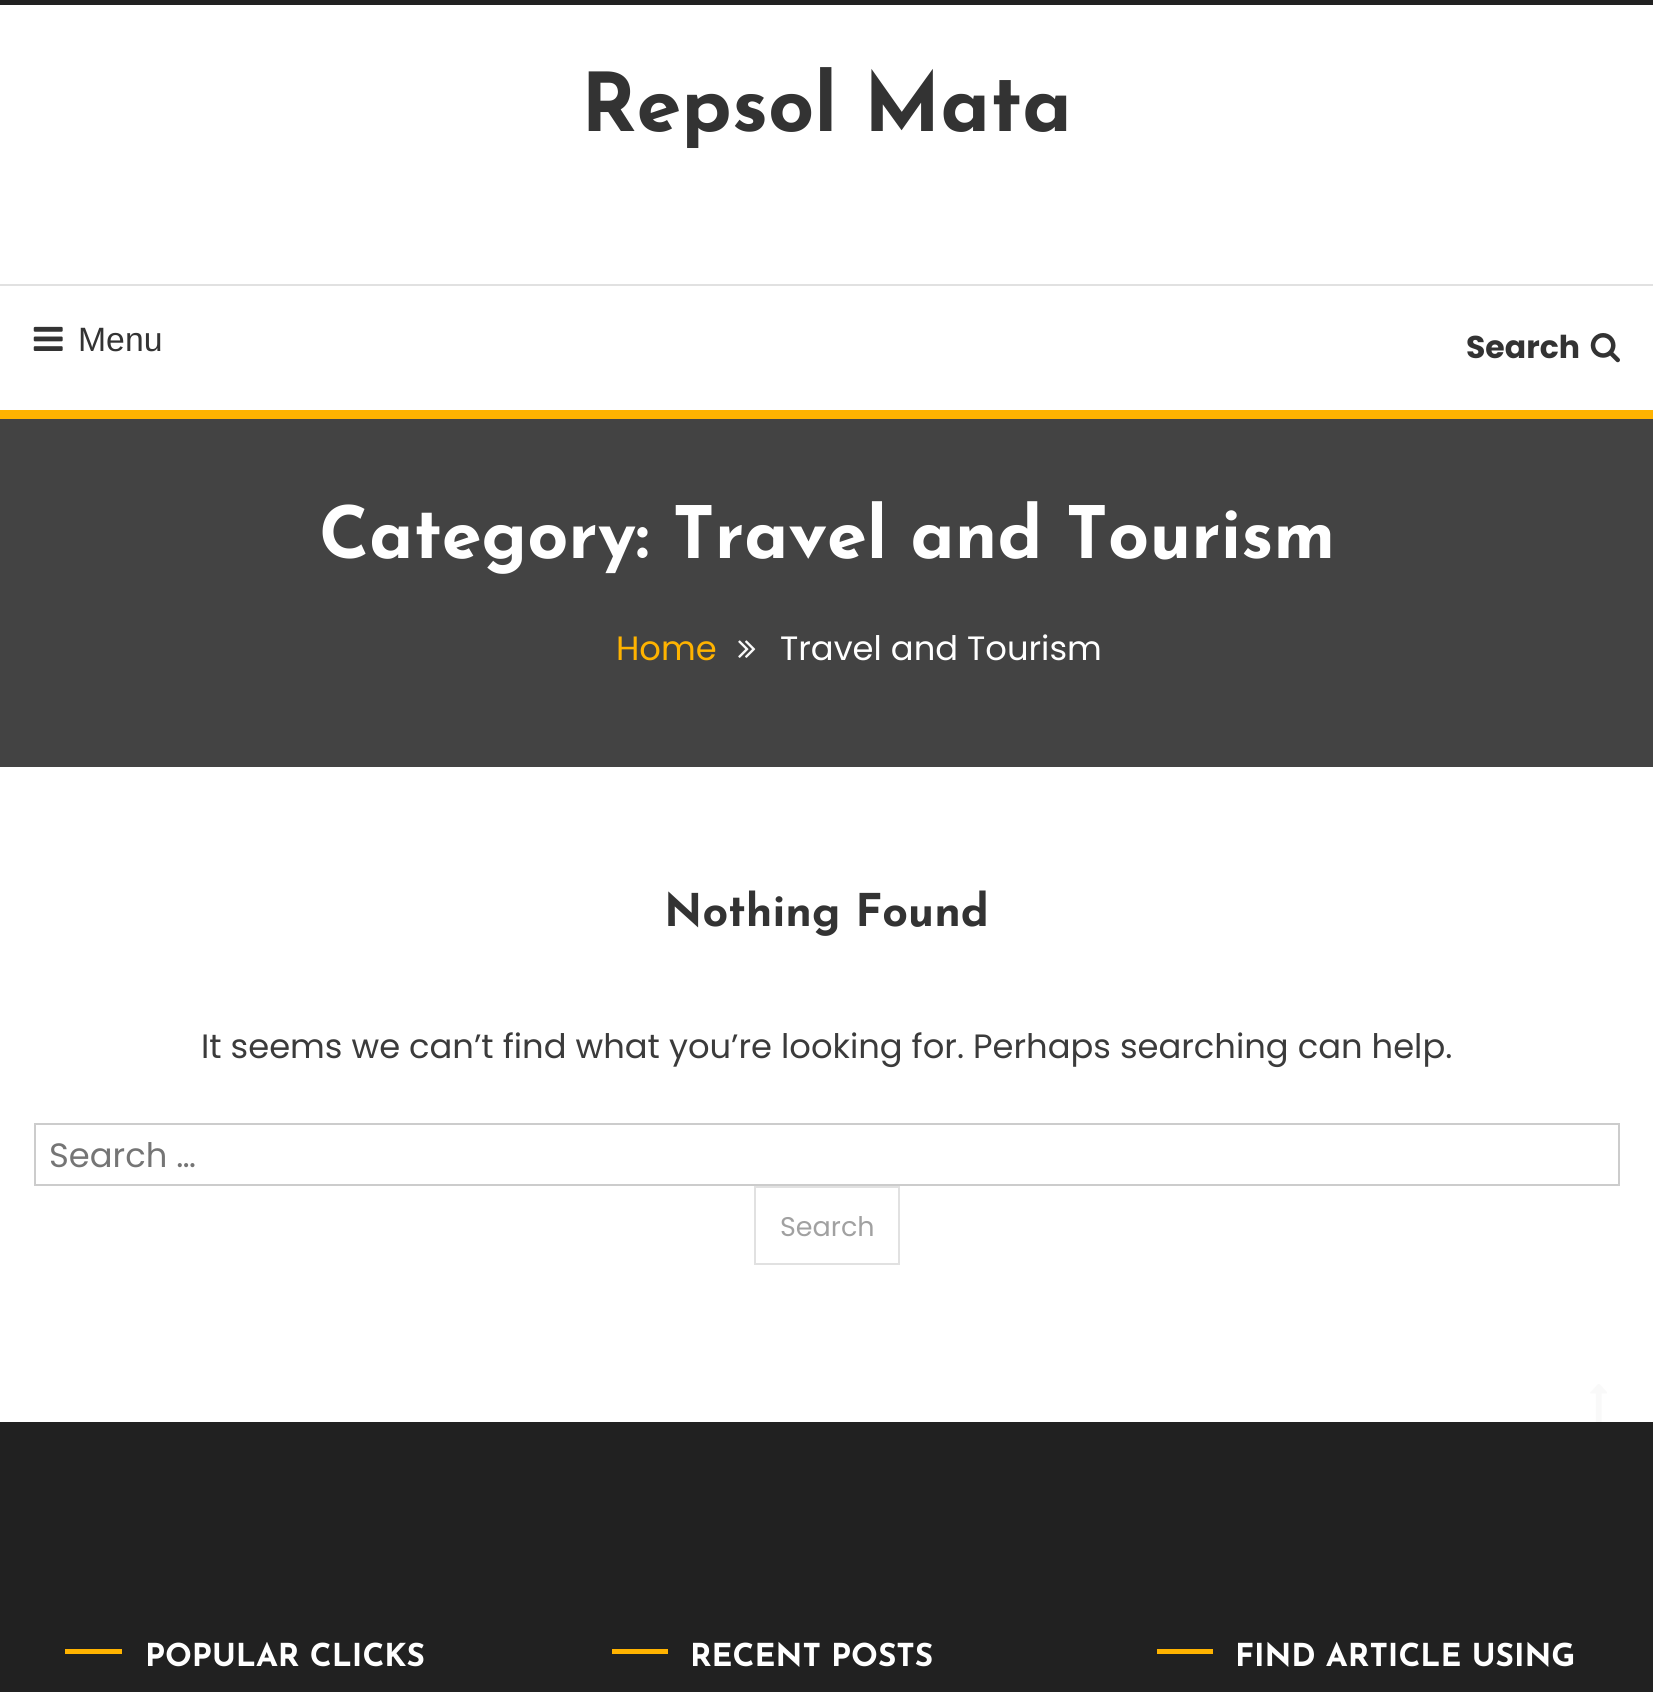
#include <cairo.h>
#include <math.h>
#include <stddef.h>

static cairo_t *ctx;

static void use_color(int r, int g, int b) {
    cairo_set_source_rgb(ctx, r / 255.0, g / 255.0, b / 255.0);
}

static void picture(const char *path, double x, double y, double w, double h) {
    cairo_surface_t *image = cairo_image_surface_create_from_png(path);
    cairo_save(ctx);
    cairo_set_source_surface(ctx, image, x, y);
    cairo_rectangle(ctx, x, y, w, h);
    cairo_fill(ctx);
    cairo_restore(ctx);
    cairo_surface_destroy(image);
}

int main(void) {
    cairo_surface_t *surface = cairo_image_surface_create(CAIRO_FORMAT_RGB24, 1653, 1692);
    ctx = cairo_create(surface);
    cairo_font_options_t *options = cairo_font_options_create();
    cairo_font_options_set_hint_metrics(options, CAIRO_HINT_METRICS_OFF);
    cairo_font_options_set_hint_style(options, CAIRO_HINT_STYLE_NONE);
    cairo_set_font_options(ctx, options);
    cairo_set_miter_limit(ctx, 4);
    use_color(255, 255, 255);
    cairo_paint(ctx);
    use_color(33, 33, 33);
    cairo_rectangle(ctx, 0, 0, 1653, 5);
    cairo_fill(ctx);
    cairo_select_font_face(ctx, "Josefin Sans", CAIRO_FONT_SLANT_NORMAL, CAIRO_FONT_WEIGHT_BOLD);
    cairo_set_font_size(ctx, 81);
    use_color(51, 51, 51);
    cairo_move_to(ctx, 581, 131);
    cairo_show_text(ctx, "Repsol Mata");
    use_color(225, 225, 225);
    cairo_rectangle(ctx, 0, 284, 1653, 2);
    cairo_fill(ctx);
    picture("img1.png", 33, 326, 30, 25);
    cairo_select_font_face(ctx, "Liberation Sans", CAIRO_FONT_SLANT_NORMAL, CAIRO_FONT_WEIGHT_NORMAL);
    cairo_set_font_size(ctx, 33.75);
    use_color(51, 51, 51);
    cairo_move_to(ctx, 78, 351);
    cairo_show_text(ctx, "Menu");
    cairo_select_font_face(ctx, "Poppins", CAIRO_FONT_SLANT_NORMAL, CAIRO_FONT_WEIGHT_BOLD);
    cairo_set_font_size(ctx, 31.5);
    cairo_move_to(ctx, 1466, 358);
    cairo_show_text(ctx, "Search");
    picture("img2.png", 1590, 333, 30, 30);
    use_color(67, 67, 67);
    cairo_rectangle(ctx, 0, 419, 1653, 348);
    cairo_fill(ctx);
    use_color(255, 179, 0);
    cairo_rectangle(ctx, 0, 410, 1653, 9);
    cairo_fill(ctx);
    cairo_select_font_face(ctx, "Josefin Sans", CAIRO_FONT_SLANT_NORMAL, CAIRO_FONT_WEIGHT_BOLD);
    cairo_set_font_size(ctx, 72);
    use_color(255, 255, 255);
    cairo_move_to(ctx, 319, 558);
    cairo_show_text(ctx, "Category: Travel and Tourism");
    cairo_select_font_face(ctx, "Poppins", CAIRO_FONT_SLANT_NORMAL, CAIRO_FONT_WEIGHT_NORMAL);
    cairo_set_font_size(ctx, 33.75);
    use_color(255, 179, 0);
    cairo_move_to(ctx, 616, 660);
    cairo_show_text(ctx, "Home");
    picture("img3.png", 738, 640, 18, 18);
    use_color(255, 255, 255);
    cairo_move_to(ctx, 780, 660);
    cairo_show_text(ctx, "Travel and Tourism");
    cairo_select_font_face(ctx, "Josefin Sans", CAIRO_FONT_SLANT_NORMAL, CAIRO_FONT_WEIGHT_BOLD);
    cairo_set_font_size(ctx, 45);
    use_color(51, 51, 51);
    cairo_move_to(ctx, 664, 926);
    cairo_show_text(ctx, "Nothing Found");
    cairo_select_font_face(ctx, "Poppins", CAIRO_FONT_SLANT_NORMAL, CAIRO_FONT_WEIGHT_NORMAL);
    cairo_set_font_size(ctx, 33.75);
    use_color(59, 59, 59);
    cairo_move_to(ctx, 201, 1058);
    cairo_show_text(ctx, "It seems we can’t find what you’re looking for. Perhaps searching can help.");
    cairo_rectangle(ctx, 35, 1124, 1584, 61);
    use_color(204, 204, 204);
    cairo_stroke(ctx);
    use_color(117, 117, 117);
    cairo_move_to(ctx, 49, 1167);
    cairo_show_text(ctx, "Search …");
    cairo_rectangle(ctx, 755, 1187, 144, 77);
    use_color(225, 225, 225);
    cairo_stroke(ctx);
    cairo_set_font_size(ctx, 27);
    use_color(161, 161, 161);
    cairo_move_to(ctx, 780, 1236);
    cairo_show_text(ctx, "Search");
    picture("img4.png", 1590, 1384, 17, 38);
    use_color(33, 33, 33);
    cairo_rectangle(ctx, 0, 1422, 1653, 270);
    cairo_fill(ctx);
    use_color(255, 179, 0);
    cairo_rectangle(ctx, 65, 1649, 57, 5);
    cairo_fill(ctx);
    cairo_select_font_face(ctx, "Josefin Sans", CAIRO_FONT_SLANT_NORMAL, CAIRO_FONT_WEIGHT_BOLD);
    cairo_set_font_size(ctx, 31.5);
    use_color(255, 255, 255);
    cairo_move_to(ctx, 145, 1666);
    cairo_show_text(ctx, "POPULAR CLICKS");
    use_color(255, 179, 0);
    cairo_rectangle(ctx, 612, 1649, 56, 5);
    cairo_fill(ctx);
    use_color(255, 255, 255);
    cairo_move_to(ctx, 690, 1666);
    cairo_show_text(ctx, "RECENT POSTS");
    use_color(255, 179, 0);
    cairo_rectangle(ctx, 1157, 1649, 56, 5);
    cairo_fill(ctx);
    use_color(255, 255, 255);
    cairo_move_to(ctx, 1235, 1666);
    cairo_show_text(ctx, "FIND ARTICLE USING");
    cairo_surface_write_to_png(surface, "result.png");
    cairo_font_options_destroy(options);
    cairo_destroy(ctx);
    cairo_surface_destroy(surface);
    return 0;
}
